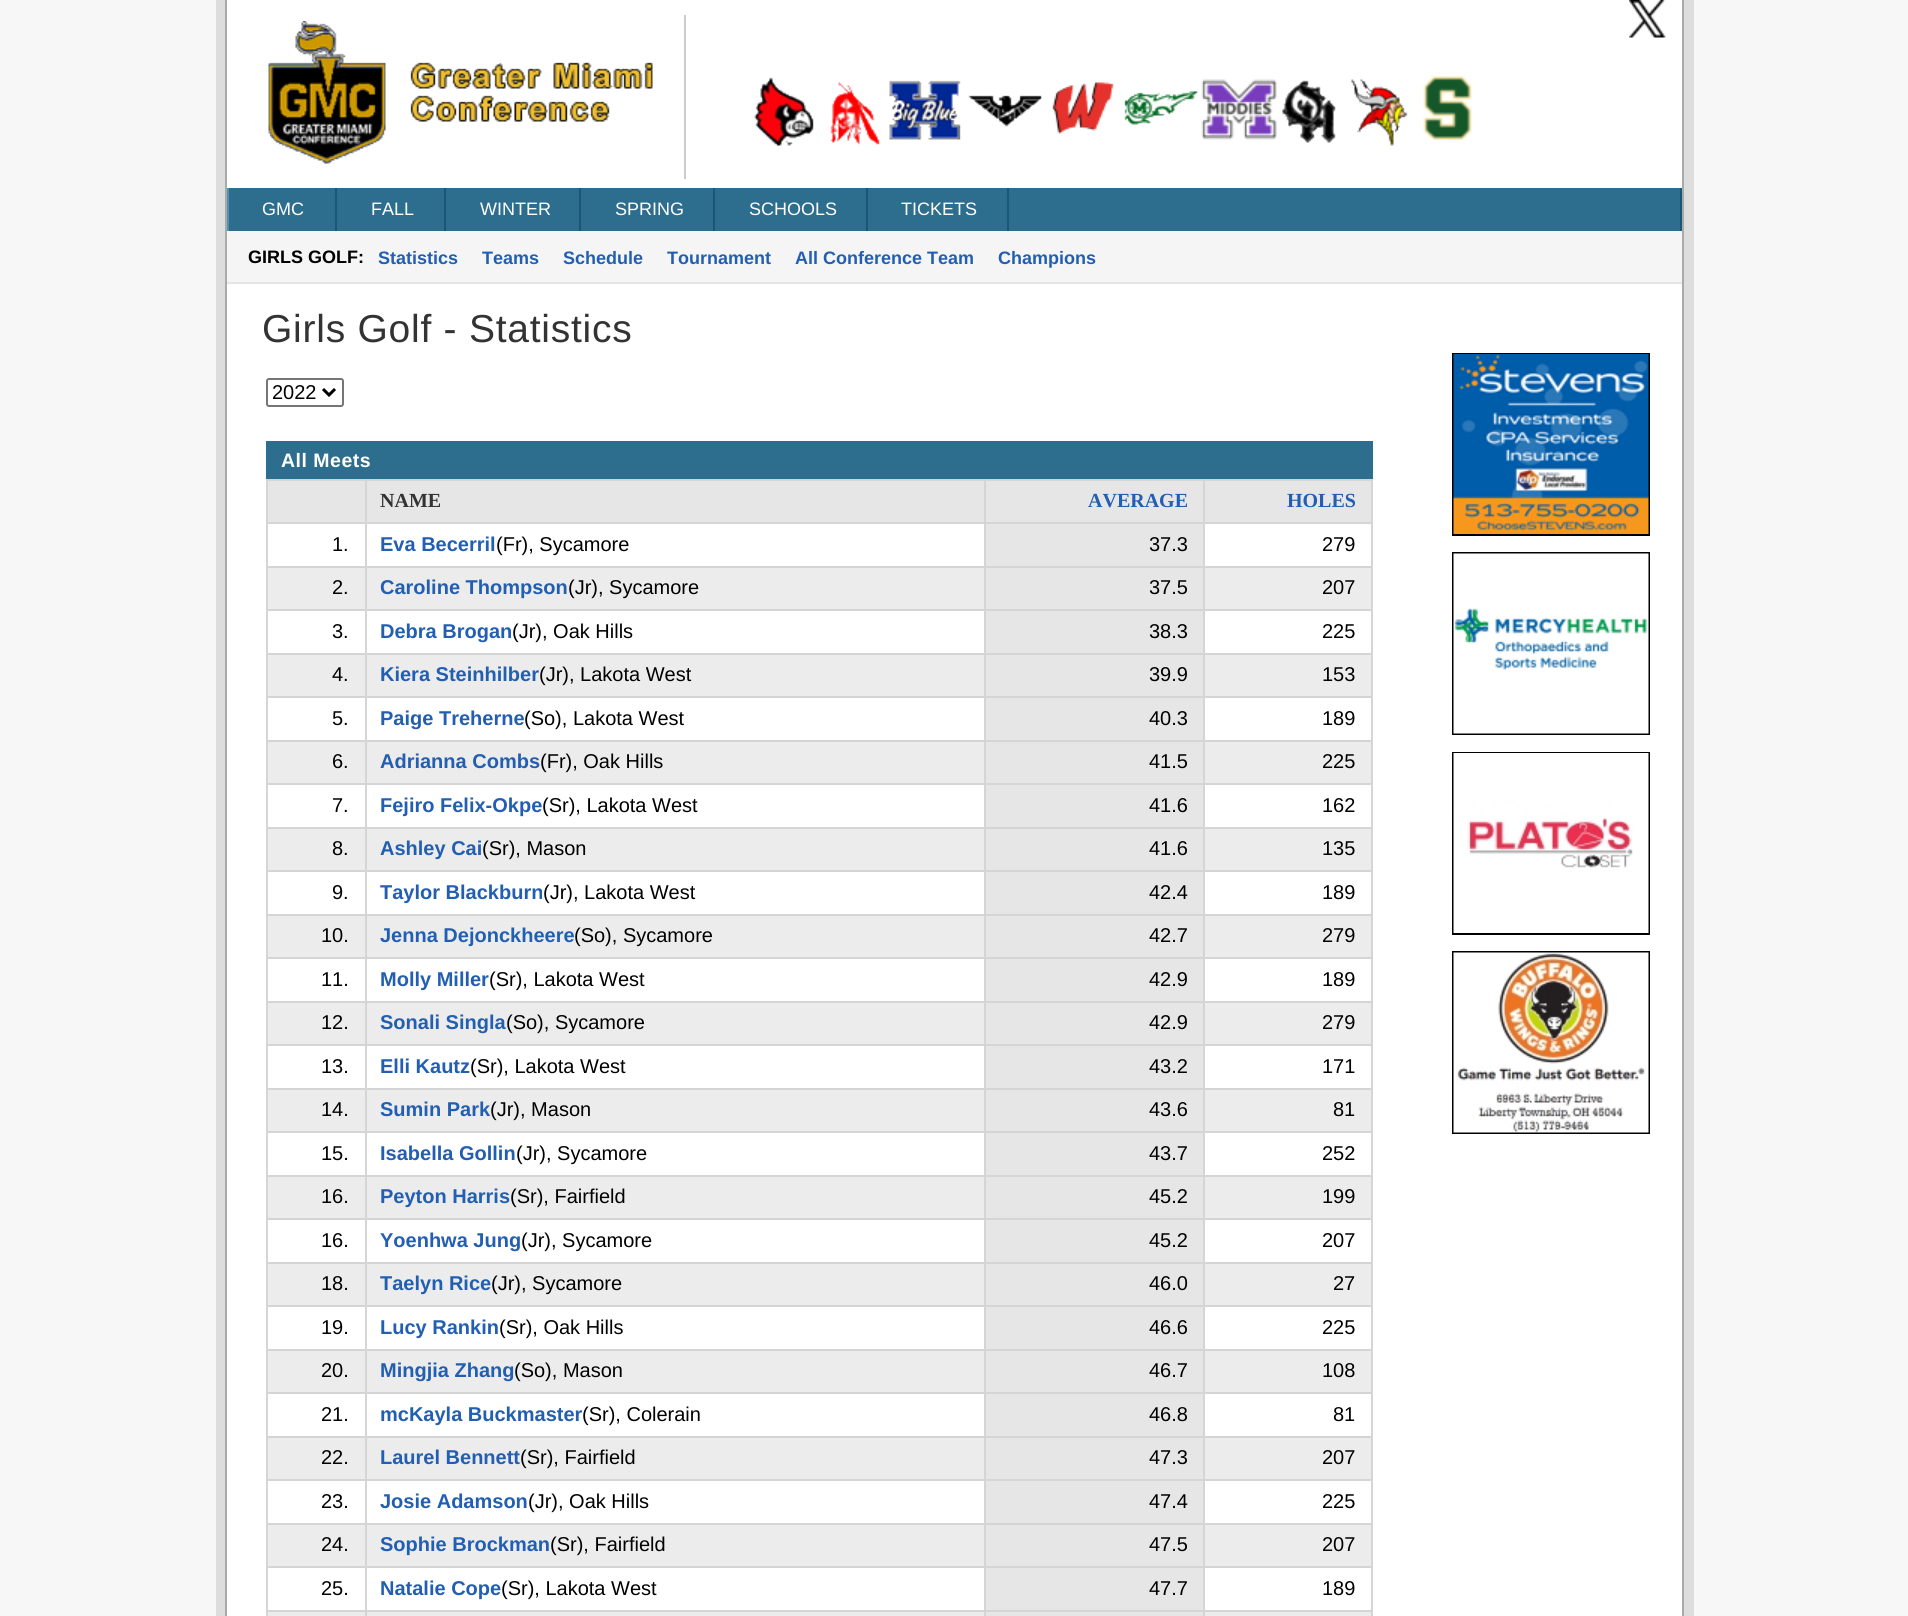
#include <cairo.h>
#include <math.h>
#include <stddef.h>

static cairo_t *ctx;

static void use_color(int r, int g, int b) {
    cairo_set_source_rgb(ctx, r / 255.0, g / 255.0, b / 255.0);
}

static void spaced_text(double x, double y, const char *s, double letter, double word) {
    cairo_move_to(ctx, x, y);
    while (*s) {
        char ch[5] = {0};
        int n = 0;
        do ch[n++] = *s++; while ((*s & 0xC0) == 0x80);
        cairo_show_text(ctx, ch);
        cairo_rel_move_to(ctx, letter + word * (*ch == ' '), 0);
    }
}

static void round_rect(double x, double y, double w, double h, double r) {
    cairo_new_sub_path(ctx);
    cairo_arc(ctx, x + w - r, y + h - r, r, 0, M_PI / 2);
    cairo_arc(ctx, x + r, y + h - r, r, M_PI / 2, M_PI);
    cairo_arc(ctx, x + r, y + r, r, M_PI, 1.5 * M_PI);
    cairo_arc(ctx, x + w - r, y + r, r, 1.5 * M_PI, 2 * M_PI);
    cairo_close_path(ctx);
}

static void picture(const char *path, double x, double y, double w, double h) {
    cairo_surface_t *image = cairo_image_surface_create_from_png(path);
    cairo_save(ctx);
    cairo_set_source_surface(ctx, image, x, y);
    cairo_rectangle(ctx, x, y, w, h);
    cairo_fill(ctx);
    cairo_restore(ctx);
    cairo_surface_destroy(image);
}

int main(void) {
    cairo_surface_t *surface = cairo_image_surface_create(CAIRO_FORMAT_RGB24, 1908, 1616);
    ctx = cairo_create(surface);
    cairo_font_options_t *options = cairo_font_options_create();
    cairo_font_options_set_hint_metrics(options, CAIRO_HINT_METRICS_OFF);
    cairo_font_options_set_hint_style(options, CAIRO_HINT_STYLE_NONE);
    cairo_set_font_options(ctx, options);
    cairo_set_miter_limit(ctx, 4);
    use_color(247, 247, 247);
    cairo_paint(ctx);
    use_color(221, 221, 221);
    cairo_rectangle(ctx, 216, 0, 1478, 1616);
    cairo_fill(ctx);
    use_color(255, 255, 255);
    cairo_rectangle(ctx, 227, 0, 1455, 1616);
    cairo_fill(ctx);
    use_color(170, 170, 170);
    cairo_rectangle(ctx, 1682, 0, 2, 1616);
    cairo_fill(ctx);
    cairo_rectangle(ctx, 225, 0, 2, 1616);
    cairo_fill(ctx);
    picture("img1.png", 268, 21, 385, 143);
    use_color(204, 204, 204);
    cairo_rectangle(ctx, 684, 15, 2, 164);
    cairo_fill(ctx);
    picture("img2.png", 754, 76, 718, 70);
    picture("img3.png", 1629, 0, 37, 38);
    use_color(45, 110, 143);
    cairo_rectangle(ctx, 229, 188, 1451, 43);
    cairo_fill(ctx);
    use_color(26, 87, 118);
    cairo_rectangle(ctx, 335, 188, 2, 45);
    cairo_fill(ctx);
    use_color(84, 144, 175);
    cairo_rectangle(ctx, 227, 188, 2, 45);
    cairo_fill(ctx);
    cairo_select_font_face(ctx, "Liberation Sans", CAIRO_FONT_SLANT_NORMAL, CAIRO_FONT_WEIGHT_NORMAL);
    cairo_set_font_size(ctx, 18);
    use_color(255, 255, 255);
    cairo_move_to(ctx, 262, 215);
    cairo_show_text(ctx, "GMC");
    use_color(26, 87, 118);
    cairo_rectangle(ctx, 444, 188, 2, 45);
    cairo_fill(ctx);
    use_color(255, 255, 255);
    cairo_move_to(ctx, 371, 215);
    cairo_show_text(ctx, "FALL");
    use_color(26, 87, 118);
    cairo_rectangle(ctx, 579, 188, 2, 45);
    cairo_fill(ctx);
    use_color(255, 255, 255);
    cairo_move_to(ctx, 480, 215);
    cairo_show_text(ctx, "WINTER");
    use_color(26, 87, 118);
    cairo_rectangle(ctx, 713, 188, 2, 45);
    cairo_fill(ctx);
    use_color(255, 255, 255);
    cairo_move_to(ctx, 615, 215);
    cairo_show_text(ctx, "SPRING");
    use_color(26, 87, 118);
    cairo_rectangle(ctx, 866, 188, 2, 45);
    cairo_fill(ctx);
    use_color(255, 255, 255);
    cairo_move_to(ctx, 749, 215);
    cairo_show_text(ctx, "SCHOOLS");
    use_color(26, 87, 118);
    cairo_rectangle(ctx, 1007, 188, 2, 45);
    cairo_fill(ctx);
    use_color(255, 255, 255);
    cairo_move_to(ctx, 901, 215);
    cairo_show_text(ctx, "TICKETS");
    use_color(26, 87, 118);
    cairo_rectangle(ctx, 1680, 188, 2, 45);
    cairo_fill(ctx);
    use_color(245, 245, 245);
    cairo_rectangle(ctx, 227, 231, 1455, 51);
    cairo_fill(ctx);
    use_color(229, 229, 229);
    cairo_rectangle(ctx, 227, 282, 1455, 2);
    cairo_fill(ctx);
    cairo_select_font_face(ctx, "Liberation Sans", CAIRO_FONT_SLANT_NORMAL, CAIRO_FONT_WEIGHT_BOLD);
    use_color(0, 0, 0);
    cairo_move_to(ctx, 248, 263);
    cairo_show_text(ctx, "GIRLS GOLF:");
    use_color(34, 95, 178);
    cairo_move_to(ctx, 378, 264);
    cairo_show_text(ctx, "Statistics");
    cairo_move_to(ctx, 482, 264);
    cairo_show_text(ctx, "Teams");
    cairo_move_to(ctx, 563, 264);
    cairo_show_text(ctx, "Schedule");
    cairo_move_to(ctx, 667, 264);
    cairo_show_text(ctx, "Tournament");
    cairo_move_to(ctx, 795, 264);
    cairo_show_text(ctx, "All Conference Team");
    cairo_move_to(ctx, 998, 264);
    cairo_show_text(ctx, "Champions");
    cairo_select_font_face(ctx, "Liberation Sans", CAIRO_FONT_SLANT_NORMAL, CAIRO_FONT_WEIGHT_NORMAL);
    cairo_set_font_size(ctx, 39);
    use_color(51, 51, 51);
    spaced_text(262, 342, "Girls Golf - Statistics", 0.75, 0);
    round_rect(267, 379, 76, 27, 2);
    use_color(118, 118, 118);
    cairo_stroke(ctx);
    cairo_new_path(ctx);
    cairo_move_to(ctx, 323, 389);
    cairo_line_to(ctx, 329, 395);
    cairo_line_to(ctx, 335, 389);
    use_color(0, 0, 0);
    cairo_set_line_width(ctx, 3);
    cairo_stroke(ctx);
    cairo_set_font_size(ctx, 20);
    cairo_move_to(ctx, 272, 399);
    cairo_show_text(ctx, "2022");
    use_color(45, 110, 143);
    cairo_rectangle(ctx, 266, 441, 1105, 38);
    cairo_fill(ctx);
    cairo_rectangle(ctx, 1371, 441, 2, 39);
    cairo_fill(ctx);
    cairo_select_font_face(ctx, "Liberation Sans", CAIRO_FONT_SLANT_NORMAL, CAIRO_FONT_WEIGHT_BOLD);
    cairo_set_font_size(ctx, 19.5);
    use_color(255, 255, 255);
    spaced_text(281, 467, "All Meets", 0.5, 0);
    use_color(230, 230, 230);
    cairo_rectangle(ctx, 268, 481, 97, 41);
    cairo_fill(ctx);
    use_color(213, 213, 213);
    cairo_rectangle(ctx, 1203, 479, 170, 2);
    cairo_fill(ctx);
    cairo_rectangle(ctx, 1203, 522, 170, 2);
    cairo_fill(ctx);
    cairo_rectangle(ctx, 1203, 566, 170, 2);
    cairo_fill(ctx);
    use_color(236, 236, 236);
    cairo_rectangle(ctx, 268, 568, 1103, 41);
    cairo_fill(ctx);
    use_color(213, 213, 213);
    cairo_rectangle(ctx, 1203, 609, 170, 2);
    cairo_fill(ctx);
    cairo_rectangle(ctx, 1203, 653, 170, 2);
    cairo_fill(ctx);
    use_color(236, 236, 236);
    cairo_rectangle(ctx, 268, 655, 1103, 41);
    cairo_fill(ctx);
    use_color(213, 213, 213);
    cairo_rectangle(ctx, 1203, 696, 170, 2);
    cairo_fill(ctx);
    cairo_rectangle(ctx, 1203, 740, 170, 2);
    cairo_fill(ctx);
    use_color(236, 236, 236);
    cairo_rectangle(ctx, 268, 742, 1103, 41);
    cairo_fill(ctx);
    use_color(213, 213, 213);
    cairo_rectangle(ctx, 1203, 783, 170, 2);
    cairo_fill(ctx);
    cairo_rectangle(ctx, 1203, 827, 170, 2);
    cairo_fill(ctx);
    use_color(236, 236, 236);
    cairo_rectangle(ctx, 268, 829, 1103, 41);
    cairo_fill(ctx);
    use_color(213, 213, 213);
    cairo_rectangle(ctx, 1203, 870, 170, 2);
    cairo_fill(ctx);
    cairo_rectangle(ctx, 1203, 914, 170, 2);
    cairo_fill(ctx);
    use_color(236, 236, 236);
    cairo_rectangle(ctx, 268, 916, 1103, 41);
    cairo_fill(ctx);
    use_color(213, 213, 213);
    cairo_rectangle(ctx, 1203, 957, 170, 2);
    cairo_fill(ctx);
    cairo_rectangle(ctx, 1203, 1001, 170, 2);
    cairo_fill(ctx);
    use_color(236, 236, 236);
    cairo_rectangle(ctx, 268, 1003, 1103, 41);
    cairo_fill(ctx);
    use_color(213, 213, 213);
    cairo_rectangle(ctx, 1203, 1044, 170, 2);
    cairo_fill(ctx);
    cairo_rectangle(ctx, 1203, 1088, 170, 2);
    cairo_fill(ctx);
    use_color(236, 236, 236);
    cairo_rectangle(ctx, 268, 1090, 1103, 41);
    cairo_fill(ctx);
    use_color(213, 213, 213);
    cairo_rectangle(ctx, 1203, 1131, 170, 2);
    cairo_fill(ctx);
    cairo_rectangle(ctx, 1203, 1175, 170, 2);
    cairo_fill(ctx);
    use_color(236, 236, 236);
    cairo_rectangle(ctx, 268, 1177, 1103, 41);
    cairo_fill(ctx);
    use_color(213, 213, 213);
    cairo_rectangle(ctx, 1203, 1218, 170, 2);
    cairo_fill(ctx);
    cairo_rectangle(ctx, 1203, 1262, 170, 2);
    cairo_fill(ctx);
    use_color(236, 236, 236);
    cairo_rectangle(ctx, 268, 1264, 1103, 41);
    cairo_fill(ctx);
    use_color(213, 213, 213);
    cairo_rectangle(ctx, 1203, 1305, 170, 2);
    cairo_fill(ctx);
    cairo_rectangle(ctx, 1203, 1349, 170, 2);
    cairo_fill(ctx);
    use_color(236, 236, 236);
    cairo_rectangle(ctx, 268, 1351, 1103, 41);
    cairo_fill(ctx);
    use_color(213, 213, 213);
    cairo_rectangle(ctx, 1203, 1392, 170, 2);
    cairo_fill(ctx);
    cairo_rectangle(ctx, 1203, 1436, 170, 2);
    cairo_fill(ctx);
    use_color(236, 236, 236);
    cairo_rectangle(ctx, 268, 1438, 1103, 41);
    cairo_fill(ctx);
    use_color(213, 213, 213);
    cairo_rectangle(ctx, 1203, 1479, 170, 2);
    cairo_fill(ctx);
    cairo_rectangle(ctx, 1203, 1523, 170, 2);
    cairo_fill(ctx);
    use_color(236, 236, 236);
    cairo_rectangle(ctx, 268, 1525, 1103, 41);
    cairo_fill(ctx);
    use_color(213, 213, 213);
    cairo_rectangle(ctx, 1203, 1566, 170, 2);
    cairo_fill(ctx);
    cairo_rectangle(ctx, 1203, 1610, 170, 2);
    cairo_fill(ctx);
    use_color(236, 236, 236);
    cairo_rectangle(ctx, 266, 1612, 1105, 4);
    cairo_fill(ctx);
    use_color(213, 213, 213);
    cairo_rectangle(ctx, 1203, 1610, 2, 6);
    cairo_fill(ctx);
    cairo_rectangle(ctx, 984, 1610, 221, 2);
    cairo_fill(ctx);
    cairo_rectangle(ctx, 1203, 1566, 2, 45);
    cairo_fill(ctx);
    cairo_rectangle(ctx, 984, 1566, 221, 2);
    cairo_fill(ctx);
    cairo_rectangle(ctx, 1203, 1523, 2, 45);
    cairo_fill(ctx);
    cairo_rectangle(ctx, 984, 1523, 221, 2);
    cairo_fill(ctx);
    cairo_rectangle(ctx, 1203, 1479, 2, 45);
    cairo_fill(ctx);
    cairo_rectangle(ctx, 984, 1479, 221, 2);
    cairo_fill(ctx);
    cairo_rectangle(ctx, 1203, 1436, 2, 45);
    cairo_fill(ctx);
    cairo_rectangle(ctx, 984, 1436, 221, 2);
    cairo_fill(ctx);
    cairo_rectangle(ctx, 1203, 1392, 2, 45);
    cairo_fill(ctx);
    cairo_rectangle(ctx, 984, 1392, 221, 2);
    cairo_fill(ctx);
    cairo_rectangle(ctx, 1203, 1349, 2, 45);
    cairo_fill(ctx);
    cairo_rectangle(ctx, 984, 1349, 221, 2);
    cairo_fill(ctx);
    cairo_rectangle(ctx, 1203, 1305, 2, 45);
    cairo_fill(ctx);
    cairo_rectangle(ctx, 984, 1305, 221, 2);
    cairo_fill(ctx);
    cairo_rectangle(ctx, 1203, 1262, 2, 45);
    cairo_fill(ctx);
    cairo_rectangle(ctx, 984, 1262, 221, 2);
    cairo_fill(ctx);
    cairo_rectangle(ctx, 1203, 1218, 2, 45);
    cairo_fill(ctx);
    cairo_rectangle(ctx, 984, 1218, 221, 2);
    cairo_fill(ctx);
    cairo_rectangle(ctx, 1203, 1175, 2, 45);
    cairo_fill(ctx);
    cairo_rectangle(ctx, 984, 1175, 221, 2);
    cairo_fill(ctx);
    cairo_rectangle(ctx, 1203, 1131, 2, 45);
    cairo_fill(ctx);
    cairo_rectangle(ctx, 984, 1131, 221, 2);
    cairo_fill(ctx);
    cairo_rectangle(ctx, 1203, 1088, 2, 45);
    cairo_fill(ctx);
    cairo_rectangle(ctx, 984, 1088, 221, 2);
    cairo_fill(ctx);
    cairo_rectangle(ctx, 1203, 1044, 2, 45);
    cairo_fill(ctx);
    cairo_rectangle(ctx, 984, 1044, 221, 2);
    cairo_fill(ctx);
    cairo_rectangle(ctx, 1203, 1001, 2, 45);
    cairo_fill(ctx);
    cairo_rectangle(ctx, 984, 1001, 221, 2);
    cairo_fill(ctx);
    cairo_rectangle(ctx, 1203, 957, 2, 45);
    cairo_fill(ctx);
    cairo_rectangle(ctx, 984, 957, 221, 2);
    cairo_fill(ctx);
    cairo_rectangle(ctx, 1203, 914, 2, 45);
    cairo_fill(ctx);
    cairo_rectangle(ctx, 984, 914, 221, 2);
    cairo_fill(ctx);
    cairo_rectangle(ctx, 1203, 870, 2, 45);
    cairo_fill(ctx);
    cairo_rectangle(ctx, 984, 870, 221, 2);
    cairo_fill(ctx);
    cairo_rectangle(ctx, 1203, 827, 2, 45);
    cairo_fill(ctx);
    cairo_rectangle(ctx, 984, 827, 221, 2);
    cairo_fill(ctx);
    cairo_rectangle(ctx, 1203, 783, 2, 45);
    cairo_fill(ctx);
    cairo_rectangle(ctx, 984, 783, 221, 2);
    cairo_fill(ctx);
    cairo_rectangle(ctx, 1203, 740, 2, 45);
    cairo_fill(ctx);
    cairo_rectangle(ctx, 984, 740, 221, 2);
    cairo_fill(ctx);
    cairo_rectangle(ctx, 1203, 696, 2, 45);
    cairo_fill(ctx);
    cairo_rectangle(ctx, 984, 696, 221, 2);
    cairo_fill(ctx);
    cairo_rectangle(ctx, 1203, 653, 2, 45);
    cairo_fill(ctx);
    cairo_rectangle(ctx, 984, 653, 221, 2);
    cairo_fill(ctx);
    cairo_rectangle(ctx, 1203, 609, 2, 45);
    cairo_fill(ctx);
    cairo_rectangle(ctx, 984, 609, 221, 2);
    cairo_fill(ctx);
    cairo_rectangle(ctx, 1203, 566, 2, 45);
    cairo_fill(ctx);
    cairo_rectangle(ctx, 984, 566, 221, 2);
    cairo_fill(ctx);
    cairo_rectangle(ctx, 1203, 522, 2, 45);
    cairo_fill(ctx);
    cairo_rectangle(ctx, 984, 522, 221, 2);
    cairo_fill(ctx);
    cairo_rectangle(ctx, 1203, 479, 2, 45);
    cairo_fill(ctx);
    cairo_rectangle(ctx, 984, 479, 221, 2);
    cairo_fill(ctx);
    use_color(230, 230, 230);
    cairo_rectangle(ctx, 984, 1612, 219, 4);
    cairo_fill(ctx);
    use_color(213, 213, 213);
    cairo_rectangle(ctx, 984, 1610, 2, 6);
    cairo_fill(ctx);
    cairo_rectangle(ctx, 365, 1610, 621, 2);
    cairo_fill(ctx);
    cairo_rectangle(ctx, 984, 1566, 2, 45);
    cairo_fill(ctx);
    cairo_rectangle(ctx, 365, 1566, 621, 2);
    cairo_fill(ctx);
    cairo_rectangle(ctx, 984, 1523, 2, 45);
    cairo_fill(ctx);
    cairo_rectangle(ctx, 365, 1523, 621, 2);
    cairo_fill(ctx);
    cairo_rectangle(ctx, 984, 1479, 2, 45);
    cairo_fill(ctx);
    cairo_rectangle(ctx, 365, 1479, 621, 2);
    cairo_fill(ctx);
    cairo_rectangle(ctx, 984, 1436, 2, 45);
    cairo_fill(ctx);
    cairo_rectangle(ctx, 365, 1436, 621, 2);
    cairo_fill(ctx);
    cairo_rectangle(ctx, 984, 1392, 2, 45);
    cairo_fill(ctx);
    cairo_rectangle(ctx, 365, 1392, 621, 2);
    cairo_fill(ctx);
    cairo_rectangle(ctx, 984, 1349, 2, 45);
    cairo_fill(ctx);
    cairo_rectangle(ctx, 365, 1349, 621, 2);
    cairo_fill(ctx);
    cairo_rectangle(ctx, 984, 1305, 2, 45);
    cairo_fill(ctx);
    cairo_rectangle(ctx, 365, 1305, 621, 2);
    cairo_fill(ctx);
    cairo_rectangle(ctx, 984, 1262, 2, 45);
    cairo_fill(ctx);
    cairo_rectangle(ctx, 365, 1262, 621, 2);
    cairo_fill(ctx);
    cairo_rectangle(ctx, 984, 1218, 2, 45);
    cairo_fill(ctx);
    cairo_rectangle(ctx, 365, 1218, 621, 2);
    cairo_fill(ctx);
    cairo_rectangle(ctx, 984, 1175, 2, 45);
    cairo_fill(ctx);
    cairo_rectangle(ctx, 365, 1175, 621, 2);
    cairo_fill(ctx);
    cairo_rectangle(ctx, 984, 1131, 2, 45);
    cairo_fill(ctx);
    cairo_rectangle(ctx, 365, 1131, 621, 2);
    cairo_fill(ctx);
    cairo_rectangle(ctx, 984, 1088, 2, 45);
    cairo_fill(ctx);
    cairo_rectangle(ctx, 365, 1088, 621, 2);
    cairo_fill(ctx);
    cairo_rectangle(ctx, 984, 1044, 2, 45);
    cairo_fill(ctx);
    cairo_rectangle(ctx, 365, 1044, 621, 2);
    cairo_fill(ctx);
    cairo_rectangle(ctx, 984, 1001, 2, 45);
    cairo_fill(ctx);
    cairo_rectangle(ctx, 365, 1001, 621, 2);
    cairo_fill(ctx);
    cairo_rectangle(ctx, 984, 957, 2, 45);
    cairo_fill(ctx);
    cairo_rectangle(ctx, 365, 957, 621, 2);
    cairo_fill(ctx);
    cairo_rectangle(ctx, 984, 914, 2, 45);
    cairo_fill(ctx);
    cairo_rectangle(ctx, 365, 914, 621, 2);
    cairo_fill(ctx);
    cairo_rectangle(ctx, 984, 870, 2, 45);
    cairo_fill(ctx);
    cairo_rectangle(ctx, 365, 870, 621, 2);
    cairo_fill(ctx);
    cairo_rectangle(ctx, 984, 827, 2, 45);
    cairo_fill(ctx);
    cairo_rectangle(ctx, 365, 827, 621, 2);
    cairo_fill(ctx);
    cairo_rectangle(ctx, 984, 783, 2, 45);
    cairo_fill(ctx);
    cairo_rectangle(ctx, 365, 783, 621, 2);
    cairo_fill(ctx);
    cairo_rectangle(ctx, 984, 740, 2, 45);
    cairo_fill(ctx);
    cairo_rectangle(ctx, 365, 740, 621, 2);
    cairo_fill(ctx);
    cairo_rectangle(ctx, 984, 696, 2, 45);
    cairo_fill(ctx);
    cairo_rectangle(ctx, 365, 696, 621, 2);
    cairo_fill(ctx);
    cairo_rectangle(ctx, 984, 653, 2, 45);
    cairo_fill(ctx);
    cairo_rectangle(ctx, 365, 653, 621, 2);
    cairo_fill(ctx);
    cairo_rectangle(ctx, 984, 609, 2, 45);
    cairo_fill(ctx);
    cairo_rectangle(ctx, 365, 609, 621, 2);
    cairo_fill(ctx);
    cairo_rectangle(ctx, 984, 566, 2, 45);
    cairo_fill(ctx);
    cairo_rectangle(ctx, 365, 566, 621, 2);
    cairo_fill(ctx);
    cairo_rectangle(ctx, 984, 522, 2, 45);
    cairo_fill(ctx);
    cairo_rectangle(ctx, 365, 522, 621, 2);
    cairo_fill(ctx);
    cairo_rectangle(ctx, 984, 479, 2, 45);
    cairo_fill(ctx);
    cairo_rectangle(ctx, 365, 479, 621, 2);
    cairo_fill(ctx);
    cairo_rectangle(ctx, 365, 1610, 2, 6);
    cairo_fill(ctx);
    cairo_rectangle(ctx, 266, 1610, 100, 2);
    cairo_fill(ctx);
    cairo_rectangle(ctx, 365, 1566, 2, 45);
    cairo_fill(ctx);
    cairo_rectangle(ctx, 266, 1566, 100, 2);
    cairo_fill(ctx);
    cairo_rectangle(ctx, 365, 1523, 2, 45);
    cairo_fill(ctx);
    cairo_rectangle(ctx, 266, 1523, 100, 2);
    cairo_fill(ctx);
    cairo_rectangle(ctx, 365, 1479, 2, 45);
    cairo_fill(ctx);
    cairo_rectangle(ctx, 266, 1479, 100, 2);
    cairo_fill(ctx);
    cairo_rectangle(ctx, 365, 1436, 2, 45);
    cairo_fill(ctx);
    cairo_rectangle(ctx, 266, 1436, 100, 2);
    cairo_fill(ctx);
    cairo_rectangle(ctx, 365, 1392, 2, 45);
    cairo_fill(ctx);
    cairo_rectangle(ctx, 266, 1392, 100, 2);
    cairo_fill(ctx);
    cairo_rectangle(ctx, 365, 1349, 2, 45);
    cairo_fill(ctx);
    cairo_rectangle(ctx, 266, 1349, 100, 2);
    cairo_fill(ctx);
    cairo_rectangle(ctx, 365, 1305, 2, 45);
    cairo_fill(ctx);
    cairo_rectangle(ctx, 266, 1305, 100, 2);
    cairo_fill(ctx);
    cairo_rectangle(ctx, 365, 1262, 2, 45);
    cairo_fill(ctx);
    cairo_rectangle(ctx, 266, 1262, 100, 2);
    cairo_fill(ctx);
    cairo_rectangle(ctx, 365, 1218, 2, 45);
    cairo_fill(ctx);
    cairo_rectangle(ctx, 266, 1218, 100, 2);
    cairo_fill(ctx);
    cairo_rectangle(ctx, 365, 1175, 2, 45);
    cairo_fill(ctx);
    cairo_rectangle(ctx, 266, 1175, 100, 2);
    cairo_fill(ctx);
    cairo_rectangle(ctx, 365, 1131, 2, 45);
    cairo_fill(ctx);
    cairo_rectangle(ctx, 266, 1131, 100, 2);
    cairo_fill(ctx);
    cairo_rectangle(ctx, 365, 1088, 2, 45);
    cairo_fill(ctx);
    cairo_rectangle(ctx, 266, 1088, 100, 2);
    cairo_fill(ctx);
    cairo_rectangle(ctx, 365, 1044, 2, 45);
    cairo_fill(ctx);
    cairo_rectangle(ctx, 266, 1044, 100, 2);
    cairo_fill(ctx);
    cairo_rectangle(ctx, 365, 1001, 2, 45);
    cairo_fill(ctx);
    cairo_rectangle(ctx, 266, 1001, 100, 2);
    cairo_fill(ctx);
    cairo_rectangle(ctx, 365, 957, 2, 45);
    cairo_fill(ctx);
    cairo_rectangle(ctx, 266, 957, 100, 2);
    cairo_fill(ctx);
    cairo_rectangle(ctx, 365, 914, 2, 45);
    cairo_fill(ctx);
    cairo_rectangle(ctx, 266, 914, 100, 2);
    cairo_fill(ctx);
    cairo_rectangle(ctx, 365, 870, 2, 45);
    cairo_fill(ctx);
    cairo_rectangle(ctx, 266, 870, 100, 2);
    cairo_fill(ctx);
    cairo_rectangle(ctx, 365, 827, 2, 45);
    cairo_fill(ctx);
    cairo_rectangle(ctx, 266, 827, 100, 2);
    cairo_fill(ctx);
    cairo_rectangle(ctx, 365, 783, 2, 45);
    cairo_fill(ctx);
    cairo_rectangle(ctx, 266, 783, 100, 2);
    cairo_fill(ctx);
    cairo_rectangle(ctx, 365, 740, 2, 45);
    cairo_fill(ctx);
    cairo_rectangle(ctx, 266, 740, 100, 2);
    cairo_fill(ctx);
    cairo_rectangle(ctx, 365, 696, 2, 45);
    cairo_fill(ctx);
    cairo_rectangle(ctx, 266, 696, 100, 2);
    cairo_fill(ctx);
    cairo_rectangle(ctx, 365, 653, 2, 45);
    cairo_fill(ctx);
    cairo_rectangle(ctx, 266, 653, 100, 2);
    cairo_fill(ctx);
    cairo_rectangle(ctx, 365, 609, 2, 45);
    cairo_fill(ctx);
    cairo_rectangle(ctx, 266, 609, 100, 2);
    cairo_fill(ctx);
    cairo_rectangle(ctx, 365, 566, 2, 45);
    cairo_fill(ctx);
    cairo_rectangle(ctx, 266, 566, 100, 2);
    cairo_fill(ctx);
    cairo_rectangle(ctx, 365, 522, 2, 45);
    cairo_fill(ctx);
    cairo_rectangle(ctx, 266, 522, 100, 2);
    cairo_fill(ctx);
    cairo_rectangle(ctx, 365, 479, 2, 45);
    cairo_fill(ctx);
    cairo_rectangle(ctx, 266, 479, 100, 2);
    cairo_fill(ctx);
    cairo_rectangle(ctx, 266, 1610, 2, 6);
    cairo_fill(ctx);
    cairo_rectangle(ctx, 266, 1566, 2, 45);
    cairo_fill(ctx);
    cairo_rectangle(ctx, 266, 1523, 2, 45);
    cairo_fill(ctx);
    cairo_rectangle(ctx, 266, 1479, 2, 45);
    cairo_fill(ctx);
    cairo_rectangle(ctx, 266, 1436, 2, 45);
    cairo_fill(ctx);
    cairo_rectangle(ctx, 266, 1392, 2, 45);
    cairo_fill(ctx);
    cairo_rectangle(ctx, 266, 1349, 2, 45);
    cairo_fill(ctx);
    cairo_rectangle(ctx, 266, 1305, 2, 45);
    cairo_fill(ctx);
    cairo_rectangle(ctx, 266, 1262, 2, 45);
    cairo_fill(ctx);
    cairo_rectangle(ctx, 266, 1218, 2, 45);
    cairo_fill(ctx);
    cairo_rectangle(ctx, 266, 1175, 2, 45);
    cairo_fill(ctx);
    cairo_rectangle(ctx, 266, 1131, 2, 45);
    cairo_fill(ctx);
    cairo_rectangle(ctx, 266, 1088, 2, 45);
    cairo_fill(ctx);
    cairo_rectangle(ctx, 266, 1044, 2, 45);
    cairo_fill(ctx);
    cairo_rectangle(ctx, 266, 1001, 2, 45);
    cairo_fill(ctx);
    cairo_rectangle(ctx, 266, 957, 2, 45);
    cairo_fill(ctx);
    cairo_rectangle(ctx, 266, 914, 2, 45);
    cairo_fill(ctx);
    cairo_rectangle(ctx, 266, 870, 2, 45);
    cairo_fill(ctx);
    cairo_rectangle(ctx, 266, 827, 2, 45);
    cairo_fill(ctx);
    cairo_rectangle(ctx, 266, 783, 2, 45);
    cairo_fill(ctx);
    cairo_rectangle(ctx, 266, 740, 2, 45);
    cairo_fill(ctx);
    cairo_rectangle(ctx, 266, 696, 2, 45);
    cairo_fill(ctx);
    cairo_rectangle(ctx, 266, 653, 2, 45);
    cairo_fill(ctx);
    cairo_rectangle(ctx, 266, 609, 2, 45);
    cairo_fill(ctx);
    cairo_rectangle(ctx, 266, 566, 2, 45);
    cairo_fill(ctx);
    cairo_rectangle(ctx, 266, 522, 2, 45);
    cairo_fill(ctx);
    cairo_rectangle(ctx, 266, 479, 2, 45);
    cairo_fill(ctx);
    use_color(230, 230, 230);
    cairo_rectangle(ctx, 367, 481, 617, 41);
    cairo_fill(ctx);
    cairo_select_font_face(ctx, "Liberation Serif", CAIRO_FONT_SLANT_NORMAL, CAIRO_FONT_WEIGHT_BOLD);
    cairo_set_font_size(ctx, 20);
    use_color(51, 51, 51);
    cairo_move_to(ctx, 380, 507);
    cairo_show_text(ctx, "NAME");
    use_color(230, 230, 230);
    cairo_rectangle(ctx, 986, 481, 217, 41);
    cairo_fill(ctx);
    use_color(34, 95, 178);
    cairo_move_to(ctx, 1088, 507);
    cairo_show_text(ctx, "AVERAGE");
    use_color(230, 230, 230);
    cairo_rectangle(ctx, 1205, 481, 166, 41);
    cairo_fill(ctx);
    use_color(213, 213, 213);
    cairo_rectangle(ctx, 1371, 1610, 2, 6);
    cairo_fill(ctx);
    cairo_rectangle(ctx, 1371, 1566, 2, 45);
    cairo_fill(ctx);
    cairo_rectangle(ctx, 1371, 1523, 2, 45);
    cairo_fill(ctx);
    cairo_rectangle(ctx, 1371, 1479, 2, 45);
    cairo_fill(ctx);
    cairo_rectangle(ctx, 1371, 1436, 2, 45);
    cairo_fill(ctx);
    cairo_rectangle(ctx, 1371, 1392, 2, 45);
    cairo_fill(ctx);
    cairo_rectangle(ctx, 1371, 1349, 2, 45);
    cairo_fill(ctx);
    cairo_rectangle(ctx, 1371, 1305, 2, 45);
    cairo_fill(ctx);
    cairo_rectangle(ctx, 1371, 1262, 2, 45);
    cairo_fill(ctx);
    cairo_rectangle(ctx, 1371, 1218, 2, 45);
    cairo_fill(ctx);
    cairo_rectangle(ctx, 1371, 1175, 2, 45);
    cairo_fill(ctx);
    cairo_rectangle(ctx, 1371, 1131, 2, 45);
    cairo_fill(ctx);
    cairo_rectangle(ctx, 1371, 1088, 2, 45);
    cairo_fill(ctx);
    cairo_rectangle(ctx, 1371, 1044, 2, 45);
    cairo_fill(ctx);
    cairo_rectangle(ctx, 1371, 1001, 2, 45);
    cairo_fill(ctx);
    cairo_rectangle(ctx, 1371, 957, 2, 45);
    cairo_fill(ctx);
    cairo_rectangle(ctx, 1371, 914, 2, 45);
    cairo_fill(ctx);
    cairo_rectangle(ctx, 1371, 870, 2, 45);
    cairo_fill(ctx);
    cairo_rectangle(ctx, 1371, 827, 2, 45);
    cairo_fill(ctx);
    cairo_rectangle(ctx, 1371, 783, 2, 45);
    cairo_fill(ctx);
    cairo_rectangle(ctx, 1371, 740, 2, 45);
    cairo_fill(ctx);
    cairo_rectangle(ctx, 1371, 696, 2, 45);
    cairo_fill(ctx);
    cairo_rectangle(ctx, 1371, 653, 2, 45);
    cairo_fill(ctx);
    cairo_rectangle(ctx, 1371, 609, 2, 45);
    cairo_fill(ctx);
    cairo_rectangle(ctx, 1371, 566, 2, 45);
    cairo_fill(ctx);
    cairo_rectangle(ctx, 1371, 522, 2, 45);
    cairo_fill(ctx);
    cairo_rectangle(ctx, 1371, 479, 2, 45);
    cairo_fill(ctx);
    use_color(34, 95, 178);
    cairo_move_to(ctx, 1287, 507);
    cairo_show_text(ctx, "HOLES");
    cairo_select_font_face(ctx, "Liberation Sans", CAIRO_FONT_SLANT_NORMAL, CAIRO_FONT_WEIGHT_NORMAL);
    use_color(0, 0, 0);
    cairo_move_to(ctx, 332, 551);
    cairo_show_text(ctx, "1.");
    cairo_select_font_face(ctx, "Liberation Sans", CAIRO_FONT_SLANT_NORMAL, CAIRO_FONT_WEIGHT_BOLD);
    use_color(34, 95, 178);
    cairo_move_to(ctx, 380, 551);
    cairo_show_text(ctx, "Eva Becerril");
    cairo_select_font_face(ctx, "Liberation Sans", CAIRO_FONT_SLANT_NORMAL, CAIRO_FONT_WEIGHT_NORMAL);
    use_color(0, 0, 0);
    cairo_move_to(ctx, 496, 551);
    cairo_show_text(ctx, "(Fr), Sycamore");
    use_color(230, 230, 230);
    cairo_rectangle(ctx, 986, 524, 217, 42);
    cairo_fill(ctx);
    use_color(0, 0, 0);
    cairo_move_to(ctx, 1149, 551);
    cairo_show_text(ctx, "37.3");
    cairo_move_to(ctx, 1322, 551);
    cairo_show_text(ctx, "279");
    cairo_move_to(ctx, 332, 594);
    cairo_show_text(ctx, "2.");
    cairo_select_font_face(ctx, "Liberation Sans", CAIRO_FONT_SLANT_NORMAL, CAIRO_FONT_WEIGHT_BOLD);
    use_color(34, 95, 178);
    cairo_move_to(ctx, 380, 594);
    cairo_show_text(ctx, "Caroline Thompson");
    cairo_select_font_face(ctx, "Liberation Sans", CAIRO_FONT_SLANT_NORMAL, CAIRO_FONT_WEIGHT_NORMAL);
    use_color(0, 0, 0);
    cairo_move_to(ctx, 568, 594);
    cairo_show_text(ctx, "(Jr), Sycamore");
    use_color(230, 230, 230);
    cairo_rectangle(ctx, 986, 568, 217, 41);
    cairo_fill(ctx);
    use_color(0, 0, 0);
    cairo_move_to(ctx, 1149, 594);
    cairo_show_text(ctx, "37.5");
    cairo_move_to(ctx, 1322, 594);
    cairo_show_text(ctx, "207");
    cairo_move_to(ctx, 332, 638);
    cairo_show_text(ctx, "3.");
    cairo_select_font_face(ctx, "Liberation Sans", CAIRO_FONT_SLANT_NORMAL, CAIRO_FONT_WEIGHT_BOLD);
    use_color(34, 95, 178);
    cairo_move_to(ctx, 380, 638);
    cairo_show_text(ctx, "Debra Brogan");
    cairo_select_font_face(ctx, "Liberation Sans", CAIRO_FONT_SLANT_NORMAL, CAIRO_FONT_WEIGHT_NORMAL);
    use_color(0, 0, 0);
    cairo_move_to(ctx, 512, 638);
    cairo_show_text(ctx, "(Jr), Oak Hills");
    use_color(230, 230, 230);
    cairo_rectangle(ctx, 986, 611, 217, 42);
    cairo_fill(ctx);
    use_color(0, 0, 0);
    cairo_move_to(ctx, 1149, 638);
    cairo_show_text(ctx, "38.3");
    cairo_move_to(ctx, 1322, 638);
    cairo_show_text(ctx, "225");
    cairo_move_to(ctx, 332, 681);
    cairo_show_text(ctx, "4.");
    cairo_select_font_face(ctx, "Liberation Sans", CAIRO_FONT_SLANT_NORMAL, CAIRO_FONT_WEIGHT_BOLD);
    use_color(34, 95, 178);
    cairo_move_to(ctx, 380, 681);
    cairo_show_text(ctx, "Kiera Steinhilber");
    cairo_select_font_face(ctx, "Liberation Sans", CAIRO_FONT_SLANT_NORMAL, CAIRO_FONT_WEIGHT_NORMAL);
    use_color(0, 0, 0);
    cairo_move_to(ctx, 539, 681);
    cairo_show_text(ctx, "(Jr), Lakota West");
    use_color(230, 230, 230);
    cairo_rectangle(ctx, 986, 655, 217, 41);
    cairo_fill(ctx);
    use_color(0, 0, 0);
    cairo_move_to(ctx, 1149, 681);
    cairo_show_text(ctx, "39.9");
    cairo_move_to(ctx, 1322, 681);
    cairo_show_text(ctx, "153");
    cairo_move_to(ctx, 332, 725);
    cairo_show_text(ctx, "5.");
    cairo_select_font_face(ctx, "Liberation Sans", CAIRO_FONT_SLANT_NORMAL, CAIRO_FONT_WEIGHT_BOLD);
    use_color(34, 95, 178);
    cairo_move_to(ctx, 380, 725);
    cairo_show_text(ctx, "Paige Treherne");
    cairo_select_font_face(ctx, "Liberation Sans", CAIRO_FONT_SLANT_NORMAL, CAIRO_FONT_WEIGHT_NORMAL);
    use_color(0, 0, 0);
    cairo_move_to(ctx, 524, 725);
    cairo_show_text(ctx, "(So), Lakota West");
    use_color(230, 230, 230);
    cairo_rectangle(ctx, 986, 698, 217, 42);
    cairo_fill(ctx);
    use_color(0, 0, 0);
    cairo_move_to(ctx, 1149, 725);
    cairo_show_text(ctx, "40.3");
    cairo_move_to(ctx, 1322, 725);
    cairo_show_text(ctx, "189");
    cairo_move_to(ctx, 332, 768);
    cairo_show_text(ctx, "6.");
    cairo_select_font_face(ctx, "Liberation Sans", CAIRO_FONT_SLANT_NORMAL, CAIRO_FONT_WEIGHT_BOLD);
    use_color(34, 95, 178);
    cairo_move_to(ctx, 380, 768);
    cairo_show_text(ctx, "Adrianna Combs");
    cairo_select_font_face(ctx, "Liberation Sans", CAIRO_FONT_SLANT_NORMAL, CAIRO_FONT_WEIGHT_NORMAL);
    use_color(0, 0, 0);
    cairo_move_to(ctx, 540, 768);
    cairo_show_text(ctx, "(Fr), Oak Hills");
    use_color(230, 230, 230);
    cairo_rectangle(ctx, 986, 742, 217, 41);
    cairo_fill(ctx);
    use_color(0, 0, 0);
    cairo_move_to(ctx, 1149, 768);
    cairo_show_text(ctx, "41.5");
    cairo_move_to(ctx, 1322, 768);
    cairo_show_text(ctx, "225");
    cairo_move_to(ctx, 332, 812);
    cairo_show_text(ctx, "7.");
    cairo_select_font_face(ctx, "Liberation Sans", CAIRO_FONT_SLANT_NORMAL, CAIRO_FONT_WEIGHT_BOLD);
    use_color(34, 95, 178);
    cairo_move_to(ctx, 380, 812);
    cairo_show_text(ctx, "Fejiro Felix-Okpe");
    cairo_select_font_face(ctx, "Liberation Sans", CAIRO_FONT_SLANT_NORMAL, CAIRO_FONT_WEIGHT_NORMAL);
    use_color(0, 0, 0);
    cairo_move_to(ctx, 542, 812);
    cairo_show_text(ctx, "(Sr), Lakota West");
    use_color(230, 230, 230);
    cairo_rectangle(ctx, 986, 785, 217, 42);
    cairo_fill(ctx);
    use_color(0, 0, 0);
    cairo_move_to(ctx, 1149, 812);
    cairo_show_text(ctx, "41.6");
    cairo_move_to(ctx, 1322, 812);
    cairo_show_text(ctx, "162");
    cairo_move_to(ctx, 332, 855);
    cairo_show_text(ctx, "8.");
    cairo_select_font_face(ctx, "Liberation Sans", CAIRO_FONT_SLANT_NORMAL, CAIRO_FONT_WEIGHT_BOLD);
    use_color(34, 95, 178);
    cairo_move_to(ctx, 380, 855);
    cairo_show_text(ctx, "Ashley Cai");
    cairo_select_font_face(ctx, "Liberation Sans", CAIRO_FONT_SLANT_NORMAL, CAIRO_FONT_WEIGHT_NORMAL);
    use_color(0, 0, 0);
    cairo_move_to(ctx, 482, 855);
    cairo_show_text(ctx, "(Sr), Mason");
    use_color(230, 230, 230);
    cairo_rectangle(ctx, 986, 829, 217, 41);
    cairo_fill(ctx);
    use_color(0, 0, 0);
    cairo_move_to(ctx, 1149, 855);
    cairo_show_text(ctx, "41.6");
    cairo_move_to(ctx, 1322, 855);
    cairo_show_text(ctx, "135");
    cairo_move_to(ctx, 332, 899);
    cairo_show_text(ctx, "9.");
    cairo_select_font_face(ctx, "Liberation Sans", CAIRO_FONT_SLANT_NORMAL, CAIRO_FONT_WEIGHT_BOLD);
    use_color(34, 95, 178);
    cairo_move_to(ctx, 380, 899);
    cairo_show_text(ctx, "Taylor Blackburn");
    cairo_select_font_face(ctx, "Liberation Sans", CAIRO_FONT_SLANT_NORMAL, CAIRO_FONT_WEIGHT_NORMAL);
    use_color(0, 0, 0);
    cairo_move_to(ctx, 543, 899);
    cairo_show_text(ctx, "(Jr), Lakota West");
    use_color(230, 230, 230);
    cairo_rectangle(ctx, 986, 872, 217, 42);
    cairo_fill(ctx);
    use_color(0, 0, 0);
    cairo_move_to(ctx, 1149, 899);
    cairo_show_text(ctx, "42.4");
    cairo_move_to(ctx, 1322, 899);
    cairo_show_text(ctx, "189");
    cairo_move_to(ctx, 321, 942);
    cairo_show_text(ctx, "10.");
    cairo_select_font_face(ctx, "Liberation Sans", CAIRO_FONT_SLANT_NORMAL, CAIRO_FONT_WEIGHT_BOLD);
    use_color(34, 95, 178);
    cairo_move_to(ctx, 380, 942);
    cairo_show_text(ctx, "Jenna Dejonckheere");
    cairo_select_font_face(ctx, "Liberation Sans", CAIRO_FONT_SLANT_NORMAL, CAIRO_FONT_WEIGHT_NORMAL);
    use_color(0, 0, 0);
    cairo_move_to(ctx, 574, 942);
    cairo_show_text(ctx, "(So), Sycamore");
    use_color(230, 230, 230);
    cairo_rectangle(ctx, 986, 916, 217, 41);
    cairo_fill(ctx);
    use_color(0, 0, 0);
    cairo_move_to(ctx, 1149, 942);
    cairo_show_text(ctx, "42.7");
    cairo_move_to(ctx, 1322, 942);
    cairo_show_text(ctx, "279");
    cairo_move_to(ctx, 321, 986);
    cairo_show_text(ctx, "11.");
    cairo_select_font_face(ctx, "Liberation Sans", CAIRO_FONT_SLANT_NORMAL, CAIRO_FONT_WEIGHT_BOLD);
    use_color(34, 95, 178);
    cairo_move_to(ctx, 380, 986);
    cairo_show_text(ctx, "Molly Miller");
    cairo_select_font_face(ctx, "Liberation Sans", CAIRO_FONT_SLANT_NORMAL, CAIRO_FONT_WEIGHT_NORMAL);
    use_color(0, 0, 0);
    cairo_move_to(ctx, 489, 986);
    cairo_show_text(ctx, "(Sr), Lakota West");
    use_color(230, 230, 230);
    cairo_rectangle(ctx, 986, 959, 217, 42);
    cairo_fill(ctx);
    use_color(0, 0, 0);
    cairo_move_to(ctx, 1149, 986);
    cairo_show_text(ctx, "42.9");
    cairo_move_to(ctx, 1322, 986);
    cairo_show_text(ctx, "189");
    cairo_move_to(ctx, 321, 1029);
    cairo_show_text(ctx, "12.");
    cairo_select_font_face(ctx, "Liberation Sans", CAIRO_FONT_SLANT_NORMAL, CAIRO_FONT_WEIGHT_BOLD);
    use_color(34, 95, 178);
    cairo_move_to(ctx, 380, 1029);
    cairo_show_text(ctx, "Sonali Singla");
    cairo_select_font_face(ctx, "Liberation Sans", CAIRO_FONT_SLANT_NORMAL, CAIRO_FONT_WEIGHT_NORMAL);
    use_color(0, 0, 0);
    cairo_move_to(ctx, 506, 1029);
    cairo_show_text(ctx, "(So), Sycamore");
    use_color(230, 230, 230);
    cairo_rectangle(ctx, 986, 1003, 217, 41);
    cairo_fill(ctx);
    use_color(0, 0, 0);
    cairo_move_to(ctx, 1149, 1029);
    cairo_show_text(ctx, "42.9");
    cairo_move_to(ctx, 1322, 1029);
    cairo_show_text(ctx, "279");
    cairo_move_to(ctx, 321, 1073);
    cairo_show_text(ctx, "13.");
    cairo_select_font_face(ctx, "Liberation Sans", CAIRO_FONT_SLANT_NORMAL, CAIRO_FONT_WEIGHT_BOLD);
    use_color(34, 95, 178);
    cairo_move_to(ctx, 380, 1073);
    cairo_show_text(ctx, "Elli Kautz");
    cairo_select_font_face(ctx, "Liberation Sans", CAIRO_FONT_SLANT_NORMAL, CAIRO_FONT_WEIGHT_NORMAL);
    use_color(0, 0, 0);
    cairo_move_to(ctx, 470, 1073);
    cairo_show_text(ctx, "(Sr), Lakota West");
    use_color(230, 230, 230);
    cairo_rectangle(ctx, 986, 1046, 217, 42);
    cairo_fill(ctx);
    use_color(0, 0, 0);
    cairo_move_to(ctx, 1149, 1073);
    cairo_show_text(ctx, "43.2");
    cairo_move_to(ctx, 1322, 1073);
    cairo_show_text(ctx, "171");
    cairo_move_to(ctx, 321, 1116);
    cairo_show_text(ctx, "14.");
    cairo_select_font_face(ctx, "Liberation Sans", CAIRO_FONT_SLANT_NORMAL, CAIRO_FONT_WEIGHT_BOLD);
    use_color(34, 95, 178);
    cairo_move_to(ctx, 380, 1116);
    cairo_show_text(ctx, "Sumin Park");
    cairo_select_font_face(ctx, "Liberation Sans", CAIRO_FONT_SLANT_NORMAL, CAIRO_FONT_WEIGHT_NORMAL);
    use_color(0, 0, 0);
    cairo_move_to(ctx, 490, 1116);
    cairo_show_text(ctx, "(Jr), Mason");
    use_color(230, 230, 230);
    cairo_rectangle(ctx, 986, 1090, 217, 41);
    cairo_fill(ctx);
    use_color(0, 0, 0);
    cairo_move_to(ctx, 1149, 1116);
    cairo_show_text(ctx, "43.6");
    cairo_move_to(ctx, 1333, 1116);
    cairo_show_text(ctx, "81");
    cairo_move_to(ctx, 321, 1160);
    cairo_show_text(ctx, "15.");
    cairo_select_font_face(ctx, "Liberation Sans", CAIRO_FONT_SLANT_NORMAL, CAIRO_FONT_WEIGHT_BOLD);
    use_color(34, 95, 178);
    cairo_move_to(ctx, 380, 1160);
    cairo_show_text(ctx, "Isabella Gollin");
    cairo_select_font_face(ctx, "Liberation Sans", CAIRO_FONT_SLANT_NORMAL, CAIRO_FONT_WEIGHT_NORMAL);
    use_color(0, 0, 0);
    cairo_move_to(ctx, 516, 1160);
    cairo_show_text(ctx, "(Jr), Sycamore");
    use_color(230, 230, 230);
    cairo_rectangle(ctx, 986, 1133, 217, 42);
    cairo_fill(ctx);
    use_color(0, 0, 0);
    cairo_move_to(ctx, 1149, 1160);
    cairo_show_text(ctx, "43.7");
    cairo_move_to(ctx, 1322, 1160);
    cairo_show_text(ctx, "252");
    cairo_move_to(ctx, 321, 1203);
    cairo_show_text(ctx, "16.");
    cairo_select_font_face(ctx, "Liberation Sans", CAIRO_FONT_SLANT_NORMAL, CAIRO_FONT_WEIGHT_BOLD);
    use_color(34, 95, 178);
    cairo_move_to(ctx, 380, 1203);
    cairo_show_text(ctx, "Peyton Harris");
    cairo_select_font_face(ctx, "Liberation Sans", CAIRO_FONT_SLANT_NORMAL, CAIRO_FONT_WEIGHT_NORMAL);
    use_color(0, 0, 0);
    cairo_move_to(ctx, 510, 1203);
    cairo_show_text(ctx, "(Sr), Fairfield");
    use_color(230, 230, 230);
    cairo_rectangle(ctx, 986, 1177, 217, 41);
    cairo_fill(ctx);
    use_color(0, 0, 0);
    cairo_move_to(ctx, 1149, 1203);
    cairo_show_text(ctx, "45.2");
    cairo_move_to(ctx, 1322, 1203);
    cairo_show_text(ctx, "199");
    cairo_move_to(ctx, 321, 1247);
    cairo_show_text(ctx, "16.");
    cairo_select_font_face(ctx, "Liberation Sans", CAIRO_FONT_SLANT_NORMAL, CAIRO_FONT_WEIGHT_BOLD);
    use_color(34, 95, 178);
    cairo_move_to(ctx, 380, 1247);
    cairo_show_text(ctx, "Yoenhwa Jung");
    cairo_select_font_face(ctx, "Liberation Sans", CAIRO_FONT_SLANT_NORMAL, CAIRO_FONT_WEIGHT_NORMAL);
    use_color(0, 0, 0);
    cairo_move_to(ctx, 521, 1247);
    cairo_show_text(ctx, "(Jr), Sycamore");
    use_color(230, 230, 230);
    cairo_rectangle(ctx, 986, 1220, 217, 42);
    cairo_fill(ctx);
    use_color(0, 0, 0);
    cairo_move_to(ctx, 1149, 1247);
    cairo_show_text(ctx, "45.2");
    cairo_move_to(ctx, 1322, 1247);
    cairo_show_text(ctx, "207");
    cairo_move_to(ctx, 321, 1290);
    cairo_show_text(ctx, "18.");
    cairo_select_font_face(ctx, "Liberation Sans", CAIRO_FONT_SLANT_NORMAL, CAIRO_FONT_WEIGHT_BOLD);
    use_color(34, 95, 178);
    cairo_move_to(ctx, 380, 1290);
    cairo_show_text(ctx, "Taelyn Rice");
    cairo_select_font_face(ctx, "Liberation Sans", CAIRO_FONT_SLANT_NORMAL, CAIRO_FONT_WEIGHT_NORMAL);
    use_color(0, 0, 0);
    cairo_move_to(ctx, 491, 1290);
    cairo_show_text(ctx, "(Jr), Sycamore");
    use_color(230, 230, 230);
    cairo_rectangle(ctx, 986, 1264, 217, 41);
    cairo_fill(ctx);
    use_color(0, 0, 0);
    cairo_move_to(ctx, 1149, 1290);
    cairo_show_text(ctx, "46.0");
    cairo_move_to(ctx, 1333, 1290);
    cairo_show_text(ctx, "27");
    cairo_move_to(ctx, 321, 1334);
    cairo_show_text(ctx, "19.");
    cairo_select_font_face(ctx, "Liberation Sans", CAIRO_FONT_SLANT_NORMAL, CAIRO_FONT_WEIGHT_BOLD);
    use_color(34, 95, 178);
    cairo_move_to(ctx, 380, 1334);
    cairo_show_text(ctx, "Lucy Rankin");
    cairo_select_font_face(ctx, "Liberation Sans", CAIRO_FONT_SLANT_NORMAL, CAIRO_FONT_WEIGHT_NORMAL);
    use_color(0, 0, 0);
    cairo_move_to(ctx, 499, 1334);
    cairo_show_text(ctx, "(Sr), Oak Hills");
    use_color(230, 230, 230);
    cairo_rectangle(ctx, 986, 1307, 217, 42);
    cairo_fill(ctx);
    use_color(0, 0, 0);
    cairo_move_to(ctx, 1149, 1334);
    cairo_show_text(ctx, "46.6");
    cairo_move_to(ctx, 1322, 1334);
    cairo_show_text(ctx, "225");
    cairo_move_to(ctx, 321, 1377);
    cairo_show_text(ctx, "20.");
    cairo_select_font_face(ctx, "Liberation Sans", CAIRO_FONT_SLANT_NORMAL, CAIRO_FONT_WEIGHT_BOLD);
    use_color(34, 95, 178);
    cairo_move_to(ctx, 380, 1377);
    cairo_show_text(ctx, "Mingjia Zhang");
    cairo_select_font_face(ctx, "Liberation Sans", CAIRO_FONT_SLANT_NORMAL, CAIRO_FONT_WEIGHT_NORMAL);
    use_color(0, 0, 0);
    cairo_move_to(ctx, 514, 1377);
    cairo_show_text(ctx, "(So), Mason");
    use_color(230, 230, 230);
    cairo_rectangle(ctx, 986, 1351, 217, 41);
    cairo_fill(ctx);
    use_color(0, 0, 0);
    cairo_move_to(ctx, 1149, 1377);
    cairo_show_text(ctx, "46.7");
    cairo_move_to(ctx, 1322, 1377);
    cairo_show_text(ctx, "108");
    cairo_move_to(ctx, 321, 1421);
    cairo_show_text(ctx, "21.");
    cairo_select_font_face(ctx, "Liberation Sans", CAIRO_FONT_SLANT_NORMAL, CAIRO_FONT_WEIGHT_BOLD);
    use_color(34, 95, 178);
    cairo_move_to(ctx, 380, 1421);
    cairo_show_text(ctx, "mcKayla Buckmaster");
    cairo_select_font_face(ctx, "Liberation Sans", CAIRO_FONT_SLANT_NORMAL, CAIRO_FONT_WEIGHT_NORMAL);
    use_color(0, 0, 0);
    cairo_move_to(ctx, 582, 1421);
    cairo_show_text(ctx, "(Sr), Colerain");
    use_color(230, 230, 230);
    cairo_rectangle(ctx, 986, 1394, 217, 42);
    cairo_fill(ctx);
    use_color(0, 0, 0);
    cairo_move_to(ctx, 1149, 1421);
    cairo_show_text(ctx, "46.8");
    cairo_move_to(ctx, 1333, 1421);
    cairo_show_text(ctx, "81");
    cairo_move_to(ctx, 321, 1464);
    cairo_show_text(ctx, "22.");
    cairo_select_font_face(ctx, "Liberation Sans", CAIRO_FONT_SLANT_NORMAL, CAIRO_FONT_WEIGHT_BOLD);
    use_color(34, 95, 178);
    cairo_move_to(ctx, 380, 1464);
    cairo_show_text(ctx, "Laurel Bennett");
    cairo_select_font_face(ctx, "Liberation Sans", CAIRO_FONT_SLANT_NORMAL, CAIRO_FONT_WEIGHT_NORMAL);
    use_color(0, 0, 0);
    cairo_move_to(ctx, 520, 1464);
    cairo_show_text(ctx, "(Sr), Fairfield");
    use_color(230, 230, 230);
    cairo_rectangle(ctx, 986, 1438, 217, 41);
    cairo_fill(ctx);
    use_color(0, 0, 0);
    cairo_move_to(ctx, 1149, 1464);
    cairo_show_text(ctx, "47.3");
    cairo_move_to(ctx, 1322, 1464);
    cairo_show_text(ctx, "207");
    cairo_move_to(ctx, 321, 1508);
    cairo_show_text(ctx, "23.");
    cairo_select_font_face(ctx, "Liberation Sans", CAIRO_FONT_SLANT_NORMAL, CAIRO_FONT_WEIGHT_BOLD);
    use_color(34, 95, 178);
    cairo_move_to(ctx, 380, 1508);
    cairo_show_text(ctx, "Josie Adamson");
    cairo_select_font_face(ctx, "Liberation Sans", CAIRO_FONT_SLANT_NORMAL, CAIRO_FONT_WEIGHT_NORMAL);
    use_color(0, 0, 0);
    cairo_move_to(ctx, 528, 1508);
    cairo_show_text(ctx, "(Jr), Oak Hills");
    use_color(230, 230, 230);
    cairo_rectangle(ctx, 986, 1481, 217, 42);
    cairo_fill(ctx);
    use_color(0, 0, 0);
    cairo_move_to(ctx, 1149, 1508);
    cairo_show_text(ctx, "47.4");
    cairo_move_to(ctx, 1322, 1508);
    cairo_show_text(ctx, "225");
    cairo_move_to(ctx, 321, 1551);
    cairo_show_text(ctx, "24.");
    cairo_select_font_face(ctx, "Liberation Sans", CAIRO_FONT_SLANT_NORMAL, CAIRO_FONT_WEIGHT_BOLD);
    use_color(34, 95, 178);
    cairo_move_to(ctx, 380, 1551);
    cairo_show_text(ctx, "Sophie Brockman");
    cairo_select_font_face(ctx, "Liberation Sans", CAIRO_FONT_SLANT_NORMAL, CAIRO_FONT_WEIGHT_NORMAL);
    use_color(0, 0, 0);
    cairo_move_to(ctx, 550, 1551);
    cairo_show_text(ctx, "(Sr), Fairfield");
    use_color(230, 230, 230);
    cairo_rectangle(ctx, 986, 1525, 217, 41);
    cairo_fill(ctx);
    use_color(0, 0, 0);
    cairo_move_to(ctx, 1149, 1551);
    cairo_show_text(ctx, "47.5");
    cairo_move_to(ctx, 1322, 1551);
    cairo_show_text(ctx, "207");
    cairo_move_to(ctx, 321, 1595);
    cairo_show_text(ctx, "25.");
    cairo_select_font_face(ctx, "Liberation Sans", CAIRO_FONT_SLANT_NORMAL, CAIRO_FONT_WEIGHT_BOLD);
    use_color(34, 95, 178);
    cairo_move_to(ctx, 380, 1595);
    cairo_show_text(ctx, "Natalie Cope");
    cairo_select_font_face(ctx, "Liberation Sans", CAIRO_FONT_SLANT_NORMAL, CAIRO_FONT_WEIGHT_NORMAL);
    use_color(0, 0, 0);
    cairo_move_to(ctx, 501, 1595);
    cairo_show_text(ctx, "(Sr), Lakota West");
    use_color(230, 230, 230);
    cairo_rectangle(ctx, 986, 1568, 217, 42);
    cairo_fill(ctx);
    use_color(0, 0, 0);
    cairo_move_to(ctx, 1149, 1595);
    cairo_show_text(ctx, "47.7");
    cairo_move_to(ctx, 1322, 1595);
    cairo_show_text(ctx, "189");
    cairo_rectangle(ctx, 1453, 354, 196, 181);
    cairo_set_line_width(ctx, 2);
    cairo_stroke(ctx);
    picture("img4.png", 1453, 354, 196, 180);
    cairo_rectangle(ctx, 1453, 553, 196, 181);
    cairo_stroke(ctx);
    picture("img5.png", 1453, 553, 196, 181);
    cairo_rectangle(ctx, 1453, 753, 196, 181);
    cairo_stroke(ctx);
    picture("img6.png", 1453, 753, 196, 180);
    cairo_rectangle(ctx, 1453, 952, 196, 181);
    cairo_stroke(ctx);
    picture("img7.png", 1453, 952, 196, 181);
    cairo_surface_write_to_png(surface, "result.png");
    cairo_font_options_destroy(options);
    cairo_destroy(ctx);
    cairo_surface_destroy(surface);
    return 0;
}
